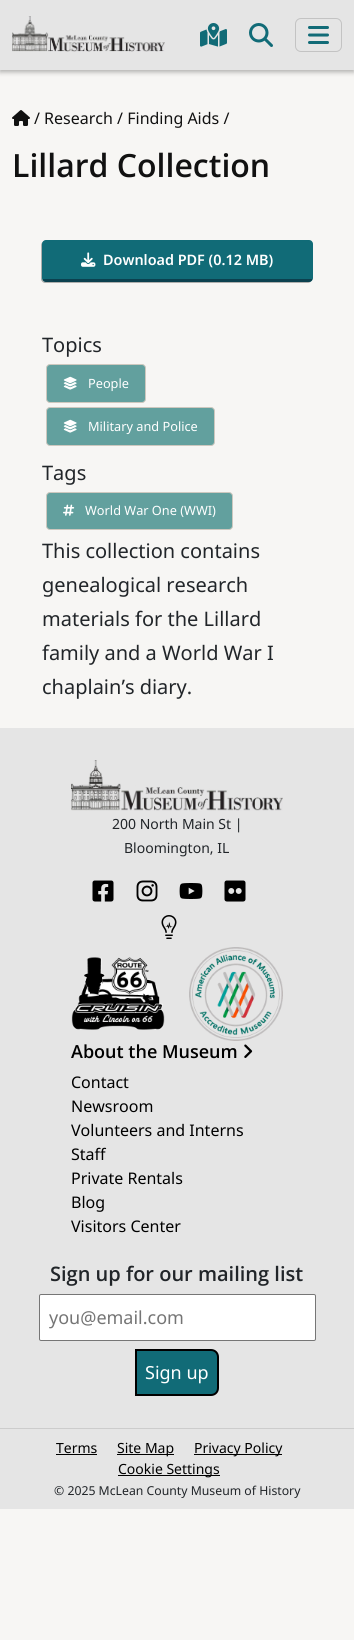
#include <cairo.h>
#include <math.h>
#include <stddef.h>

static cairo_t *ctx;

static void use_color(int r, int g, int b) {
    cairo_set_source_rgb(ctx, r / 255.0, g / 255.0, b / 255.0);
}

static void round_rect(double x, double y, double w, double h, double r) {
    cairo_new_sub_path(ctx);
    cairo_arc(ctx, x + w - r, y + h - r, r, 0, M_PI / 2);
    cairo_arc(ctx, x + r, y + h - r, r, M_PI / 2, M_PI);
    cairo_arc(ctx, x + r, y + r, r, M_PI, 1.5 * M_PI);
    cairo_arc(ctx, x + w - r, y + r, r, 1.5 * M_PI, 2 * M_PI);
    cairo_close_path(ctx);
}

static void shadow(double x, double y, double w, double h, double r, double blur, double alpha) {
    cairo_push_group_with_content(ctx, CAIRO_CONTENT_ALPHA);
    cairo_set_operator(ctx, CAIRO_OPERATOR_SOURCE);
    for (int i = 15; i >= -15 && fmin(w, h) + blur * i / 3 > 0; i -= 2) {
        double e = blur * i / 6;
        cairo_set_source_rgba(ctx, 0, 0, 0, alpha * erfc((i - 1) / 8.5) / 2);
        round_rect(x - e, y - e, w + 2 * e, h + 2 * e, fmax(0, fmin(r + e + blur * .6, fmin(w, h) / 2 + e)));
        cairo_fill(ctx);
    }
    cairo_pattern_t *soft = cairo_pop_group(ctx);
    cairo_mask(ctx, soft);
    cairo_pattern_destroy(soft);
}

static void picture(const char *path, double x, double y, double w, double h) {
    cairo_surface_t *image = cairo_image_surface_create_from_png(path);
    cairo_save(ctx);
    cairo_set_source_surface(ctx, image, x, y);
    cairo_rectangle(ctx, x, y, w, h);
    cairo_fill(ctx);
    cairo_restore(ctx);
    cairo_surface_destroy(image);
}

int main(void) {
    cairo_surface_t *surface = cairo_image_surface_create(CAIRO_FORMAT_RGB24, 354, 1640);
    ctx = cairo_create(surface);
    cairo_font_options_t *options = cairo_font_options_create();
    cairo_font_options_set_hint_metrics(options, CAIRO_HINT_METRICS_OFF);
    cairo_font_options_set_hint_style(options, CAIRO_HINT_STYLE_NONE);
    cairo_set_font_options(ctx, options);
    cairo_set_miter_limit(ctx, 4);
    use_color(247, 246, 244);
    cairo_paint(ctx);
    use_color(0, 0, 0);
    shadow(0, 2, 354, 70, 0, 2.5, 0.3);
    use_color(229, 229, 229);
    cairo_rectangle(ctx, 0, 0, 354, 70);
    cairo_fill(ctx);
    picture("img1.png", 12, 16, 153, 36);
    picture("img2.png", 200, 23, 27, 24);
    picture("img3.png", 249, 23, 24, 24);
    round_rect(295.5, 18.5, 46, 33, 5.5);
    use_color(195, 195, 195);
    cairo_set_line_width(ctx, 1);
    cairo_stroke(ctx);
    picture("img4.png", 308, 26, 21, 18);
    picture("img5.png", 12, 110, 18, 16);
    cairo_select_font_face(ctx, "Noto Sans", CAIRO_FONT_SLANT_NORMAL, CAIRO_FONT_WEIGHT_NORMAL);
    cairo_set_font_size(ctx, 16);
    use_color(17, 17, 17);
    cairo_move_to(ctx, 34, 124);
    cairo_show_text(ctx, "/ Research / Finding Aids /");
    cairo_select_font_face(ctx, "Open Sans SemiBold", CAIRO_FONT_SLANT_NORMAL, CAIRO_FONT_WEIGHT_NORMAL);
    cairo_set_font_size(ctx, 32);
    cairo_move_to(ctx, 12, 177);
    cairo_show_text(ctx, "Lillard Collection");
    use_color(175, 175, 173);
    cairo_new_path(ctx);
    cairo_move_to(ctx, 43, 242);
    cairo_curve_to(ctx, 42, 242, 41, 244, 41, 245);
    cairo_line_to(ctx, 41, 279);
    cairo_curve_to(ctx, 41, 281, 43, 283, 45, 283);
    cairo_line_to(ctx, 308, 283);
    cairo_curve_to(ctx, 309, 283, 311, 282, 311, 281);
    cairo_line_to(ctx, 309, 282);
    cairo_line_to(ctx, 46, 282);
    cairo_curve_to(ctx, 44, 282, 42, 280, 42, 278);
    cairo_line_to(ctx, 42, 244);
    cairo_close_path(ctx);
    cairo_fill(ctx);
    use_color(17, 107, 119);
    round_rect(42, 240, 271, 42, 4);
    cairo_fill(ctx);
    cairo_set_source_rgba(ctx, 0.039, 0.173, 0.227, 0.65);
    cairo_new_path(ctx);
    cairo_move_to(ctx, 46, 282);
    cairo_line_to(ctx, 309, 282);
    cairo_curve_to(ctx, 310, 282, 312, 281, 312, 280);
    cairo_line_to(ctx, 312, 279);
    cairo_line_to(ctx, 309, 279);
    cairo_line_to(ctx, 46, 279);
    cairo_line_to(ctx, 43, 279);
    cairo_line_to(ctx, 43, 280);
    cairo_curve_to(ctx, 43, 281, 45, 282, 46, 282);
    cairo_close_path(ctx);
    cairo_fill(ctx);
    picture("img6.png", 81, 252, 15, 15);
    cairo_select_font_face(ctx, "Noto Sans SemiBold", CAIRO_FONT_SLANT_NORMAL, CAIRO_FONT_WEIGHT_NORMAL);
    cairo_set_font_size(ctx, 14.4);
    use_color(255, 255, 255);
    cairo_move_to(ctx, 103, 265);
    cairo_show_text(ctx, "Download PDF (0.12 MB)");
    cairo_select_font_face(ctx, "Noto Sans", CAIRO_FONT_SLANT_NORMAL, CAIRO_FONT_WEIGHT_NORMAL);
    cairo_set_font_size(ctx, 20);
    use_color(33, 37, 41);
    cairo_move_to(ctx, 42, 352);
    cairo_show_text(ctx, "Topics");
    use_color(98, 160, 158);
    round_rect(46.5, 364.5, 99, 38, 3.5);
    cairo_fill_preserve(ctx);
    use_color(205, 200, 191);
    cairo_stroke(ctx);
    picture("img7.png", 63, 376, 14, 14);
    cairo_set_font_size(ctx, 12.75);
    use_color(255, 255, 255);
    cairo_move_to(ctx, 88, 388);
    cairo_show_text(ctx, "People");
    use_color(98, 160, 158);
    round_rect(46.5, 407.5, 168, 38, 3.5);
    cairo_fill_preserve(ctx);
    use_color(205, 200, 191);
    cairo_stroke(ctx);
    picture("img7.png", 63, 419, 14, 14);
    use_color(255, 255, 255);
    cairo_move_to(ctx, 88, 431);
    cairo_show_text(ctx, "Military and Police");
    cairo_set_font_size(ctx, 20);
    use_color(33, 37, 41);
    cairo_move_to(ctx, 42, 480);
    cairo_show_text(ctx, "Tags");
    use_color(98, 160, 158);
    round_rect(46.5, 492.5, 186, 37, 3.5);
    cairo_fill_preserve(ctx);
    use_color(205, 200, 191);
    cairo_stroke(ctx);
    picture("img8.png", 63, 504, 12, 12);
    cairo_set_font_size(ctx, 12.75);
    use_color(255, 255, 255);
    cairo_move_to(ctx, 85, 515);
    cairo_show_text(ctx, "World War One (WWI)");
    cairo_set_font_size(ctx, 20);
    use_color(33, 37, 41);
    cairo_move_to(ctx, 42, 558);
    cairo_show_text(ctx, "This collection contains");
    cairo_move_to(ctx, 42, 592);
    cairo_show_text(ctx, "genealogical research");
    cairo_move_to(ctx, 42, 626);
    cairo_show_text(ctx, "materials for the Lillard");
    cairo_move_to(ctx, 42, 660);
    cairo_show_text(ctx, "family and a World War I");
    cairo_move_to(ctx, 42, 694);
    cairo_show_text(ctx, "chaplain’s diary.");
    use_color(229, 229, 229);
    cairo_rectangle(ctx, 0, 728, 354, 700);
    cairo_fill(ctx);
    picture("img9.png", 71, 760, 212, 51);
    cairo_set_font_size(ctx, 14);
    use_color(33, 37, 41);
    cairo_move_to(ctx, 112, 829);
    cairo_show_text(ctx, "200 North Main St |");
    cairo_move_to(ctx, 124, 853);
    cairo_show_text(ctx, "Bloomington, IL");
    picture("img10.png", 92, 880, 22, 22);
    picture("img11.png", 136, 880, 22, 22);
    picture("img12.png", 179, 883, 24, 16);
    picture("img13.png", 224, 880, 22, 22);
    picture("img14.png", 161, 915, 16, 24);
    picture("img15.png", 71, 957, 94, 73);
    picture("img16.png", 189, 947, 94, 94);
    cairo_select_font_face(ctx, "Open Sans SemiBold", CAIRO_FONT_SLANT_NORMAL, CAIRO_FONT_WEIGHT_NORMAL);
    cairo_set_font_size(ctx, 18);
    use_color(0, 0, 0);
    cairo_move_to(ctx, 71, 1058);
    cairo_show_text(ctx, "About the Museum");
    picture("img17.png", 244, 1044, 9, 14);
    cairo_select_font_face(ctx, "Noto Sans", CAIRO_FONT_SLANT_NORMAL, CAIRO_FONT_WEIGHT_NORMAL);
    cairo_set_font_size(ctx, 16);
    cairo_move_to(ctx, 71, 1088);
    cairo_show_text(ctx, "Contact");
    cairo_move_to(ctx, 71, 1112);
    cairo_show_text(ctx, "Newsroom");
    cairo_move_to(ctx, 71, 1136);
    cairo_show_text(ctx, "Volunteers and Interns");
    cairo_move_to(ctx, 71, 1160);
    cairo_show_text(ctx, "Staff");
    cairo_move_to(ctx, 71, 1184);
    cairo_show_text(ctx, "Private Rentals");
    cairo_move_to(ctx, 71, 1208);
    cairo_show_text(ctx, "Blog");
    cairo_move_to(ctx, 71, 1232);
    cairo_show_text(ctx, "Visitors Center");
    cairo_select_font_face(ctx, "Open Sans SemiBold", CAIRO_FONT_SLANT_NORMAL, CAIRO_FONT_WEIGHT_NORMAL);
    cairo_set_font_size(ctx, 20);
    use_color(33, 37, 41);
    cairo_move_to(ctx, 50, 1281);
    cairo_show_text(ctx, "Sign up for our mailing list");
    use_color(255, 255, 255);
    round_rect(39.5, 1294.5, 276, 46, 1.5);
    cairo_fill_preserve(ctx);
    use_color(118, 118, 118);
    cairo_stroke(ctx);
    cairo_select_font_face(ctx, "Noto Sans", CAIRO_FONT_SLANT_NORMAL, CAIRO_FONT_WEIGHT_NORMAL);
    cairo_set_font_size(ctx, 18);
    use_color(117, 117, 117);
    cairo_move_to(ctx, 49, 1324);
    cairo_show_text(ctx, "you@email.com");
    use_color(17, 107, 119);
    cairo_new_path(ctx);
    cairo_move_to(ctx, 136, 1350);
    cairo_line_to(ctx, 211, 1350);
    cairo_curve_to(ctx, 215, 1350, 218, 1353, 218, 1357);
    cairo_line_to(ctx, 218, 1388);
    cairo_curve_to(ctx, 218, 1392, 215, 1395, 211, 1395);
    cairo_line_to(ctx, 136, 1395);
    cairo_close_path(ctx);
    cairo_fill_preserve(ctx);
    use_color(0, 0, 0);
    cairo_set_line_width(ctx, 2);
    cairo_stroke(ctx);
    use_color(255, 255, 255);
    cairo_move_to(ctx, 145, 1379);
    cairo_show_text(ctx, "Sign up");
    use_color(229, 229, 229);
    cairo_rectangle(ctx, 0, 1429, 354, 80);
    cairo_fill(ctx);
    use_color(204, 204, 204);
    cairo_rectangle(ctx, 0, 1428, 354, 1);
    cairo_fill(ctx);
    cairo_set_font_size(ctx, 14);
    use_color(0, 0, 0);
    cairo_move_to(ctx, 56, 1453);
    cairo_show_text(ctx, "Terms");
    cairo_rectangle(ctx, 56, 1454, 41, 1);
    cairo_fill(ctx);
    cairo_rectangle(ctx, 117, 1454, 57, 1);
    cairo_fill(ctx);
    cairo_move_to(ctx, 117, 1453);
    cairo_show_text(ctx, "Site Map");
    cairo_rectangle(ctx, 194, 1454, 88, 1);
    cairo_fill(ctx);
    cairo_move_to(ctx, 194, 1453);
    cairo_show_text(ctx, "Privacy Policy");
    cairo_rectangle(ctx, 118, 1475, 102, 1);
    cairo_fill(ctx);
    cairo_move_to(ctx, 118, 1474);
    cairo_show_text(ctx, "Cookie Settings");
    cairo_set_font_size(ctx, 12.25);
    use_color(33, 37, 41);
    cairo_move_to(ctx, 54, 1495);
    cairo_show_text(ctx, "© 2025 McLean County Museum of History");
    cairo_surface_write_to_png(surface, "result.png");
    cairo_font_options_destroy(options);
    cairo_destroy(ctx);
    cairo_surface_destroy(surface);
    return 0;
}
